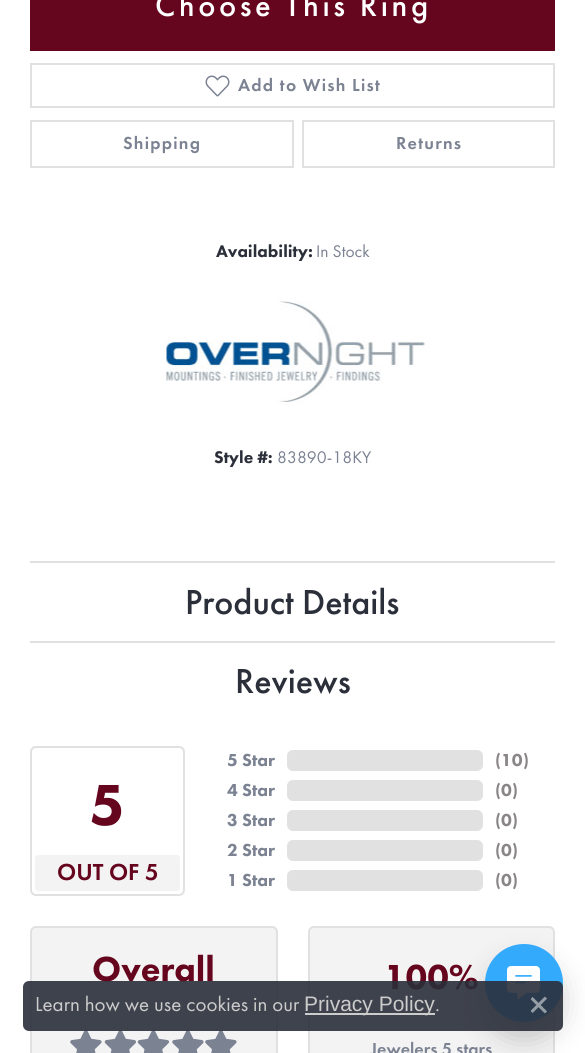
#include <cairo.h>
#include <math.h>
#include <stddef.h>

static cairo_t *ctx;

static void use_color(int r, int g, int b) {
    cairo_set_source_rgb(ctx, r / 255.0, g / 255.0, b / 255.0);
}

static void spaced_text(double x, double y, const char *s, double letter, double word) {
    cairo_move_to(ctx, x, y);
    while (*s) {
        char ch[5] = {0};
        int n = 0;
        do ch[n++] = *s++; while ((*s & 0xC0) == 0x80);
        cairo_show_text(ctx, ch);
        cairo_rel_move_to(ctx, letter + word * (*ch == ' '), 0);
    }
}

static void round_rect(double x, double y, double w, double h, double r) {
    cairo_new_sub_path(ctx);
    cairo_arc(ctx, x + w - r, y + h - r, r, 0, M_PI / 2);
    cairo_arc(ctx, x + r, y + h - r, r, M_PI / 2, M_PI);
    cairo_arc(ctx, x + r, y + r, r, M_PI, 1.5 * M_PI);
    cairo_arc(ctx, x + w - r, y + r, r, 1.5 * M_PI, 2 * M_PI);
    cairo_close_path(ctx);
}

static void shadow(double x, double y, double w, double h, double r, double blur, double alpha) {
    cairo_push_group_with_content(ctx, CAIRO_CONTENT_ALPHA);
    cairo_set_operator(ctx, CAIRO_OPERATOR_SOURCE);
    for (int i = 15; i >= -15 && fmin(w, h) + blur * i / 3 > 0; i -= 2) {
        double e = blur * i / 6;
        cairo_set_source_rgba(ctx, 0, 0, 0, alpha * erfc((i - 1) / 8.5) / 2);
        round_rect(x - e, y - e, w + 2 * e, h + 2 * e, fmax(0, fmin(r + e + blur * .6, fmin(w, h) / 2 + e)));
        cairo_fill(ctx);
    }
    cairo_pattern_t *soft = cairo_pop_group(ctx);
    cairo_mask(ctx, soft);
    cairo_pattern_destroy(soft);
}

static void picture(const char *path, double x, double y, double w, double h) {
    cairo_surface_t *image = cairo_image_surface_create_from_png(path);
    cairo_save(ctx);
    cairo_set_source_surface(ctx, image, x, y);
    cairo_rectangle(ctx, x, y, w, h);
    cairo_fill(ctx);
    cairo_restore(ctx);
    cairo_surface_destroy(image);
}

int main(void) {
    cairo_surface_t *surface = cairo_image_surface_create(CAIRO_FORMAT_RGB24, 585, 1053);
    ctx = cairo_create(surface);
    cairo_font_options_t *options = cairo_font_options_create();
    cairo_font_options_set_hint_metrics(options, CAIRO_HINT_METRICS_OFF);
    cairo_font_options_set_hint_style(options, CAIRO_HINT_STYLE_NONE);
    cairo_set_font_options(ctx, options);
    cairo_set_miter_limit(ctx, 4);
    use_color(255, 255, 255);
    cairo_paint(ctx);
    use_color(101, 5, 30);
    cairo_rectangle(ctx, 30, 0, 525, 51);
    cairo_fill(ctx);
    cairo_select_font_face(ctx, "Futura PT Medium", CAIRO_FONT_SLANT_NORMAL, CAIRO_FONT_WEIGHT_NORMAL);
    cairo_set_font_size(ctx, 32.5);
    use_color(255, 255, 255);
    spaced_text(155, 16, "Choose This Ring", 3.6, 0);
    cairo_rectangle(ctx, 31, 64, 523, 43);
    use_color(226, 225, 225);
    cairo_stroke(ctx);
    picture("img1.png", 205, 75, 25, 22);
    cairo_select_font_face(ctx, "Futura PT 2 Medium", CAIRO_FONT_SLANT_NORMAL, CAIRO_FONT_WEIGHT_NORMAL);
    cairo_set_font_size(ctx, 18);
    use_color(123, 130, 146);
    spaced_text(238, 91, "Add to Wish List", 1.25, 0);
    cairo_rectangle(ctx, 31, 121, 262, 46);
    use_color(226, 225, 225);
    cairo_stroke(ctx);
    use_color(123, 130, 146);
    spaced_text(123, 149, "Shipping", 1.25, 0);
    cairo_rectangle(ctx, 303, 121, 251, 46);
    use_color(226, 225, 225);
    cairo_stroke(ctx);
    use_color(123, 130, 146);
    spaced_text(396, 149, "Returns", 1.25, 0);
    cairo_select_font_face(ctx, "Futura PT Black", CAIRO_FONT_SLANT_NORMAL, CAIRO_FONT_WEIGHT_NORMAL);
    cairo_set_font_size(ctx, 17.5);
    use_color(43, 47, 58);
    cairo_move_to(ctx, 216, 257);
    cairo_show_text(ctx, "Availability:");
    cairo_select_font_face(ctx, "Futura PT", CAIRO_FONT_SLANT_NORMAL, CAIRO_FONT_WEIGHT_NORMAL);
    use_color(123, 130, 146);
    cairo_move_to(ctx, 316, 257);
    cairo_show_text(ctx, "In Stock");
    picture("img2.png", 166, 301, 264, 104);
    cairo_select_font_face(ctx, "Futura PT Black", CAIRO_FONT_SLANT_NORMAL, CAIRO_FONT_WEIGHT_NORMAL);
    use_color(43, 47, 58);
    cairo_move_to(ctx, 214, 463);
    cairo_show_text(ctx, "Style #:");
    cairo_select_font_face(ctx, "Futura PT", CAIRO_FONT_SLANT_NORMAL, CAIRO_FONT_WEIGHT_NORMAL);
    use_color(123, 130, 146);
    cairo_move_to(ctx, 277, 463);
    cairo_show_text(ctx, "83890-18KY");
    use_color(226, 225, 225);
    cairo_rectangle(ctx, 30, 561, 525, 2);
    cairo_fill(ctx);
    cairo_select_font_face(ctx, "Futura PT Medium", CAIRO_FONT_SLANT_NORMAL, CAIRO_FONT_WEIGHT_NORMAL);
    cairo_set_font_size(ctx, 36);
    use_color(43, 47, 58);
    cairo_move_to(ctx, 185, 614);
    cairo_show_text(ctx, "Product Details");
    use_color(226, 225, 225);
    cairo_rectangle(ctx, 30, 641, 525, 2);
    cairo_fill(ctx);
    use_color(43, 47, 58);
    cairo_move_to(ctx, 235, 693);
    cairo_show_text(ctx, "Reviews");
    round_rect(31, 747, 153, 148, 5);
    use_color(226, 225, 225);
    cairo_stroke(ctx);
    cairo_select_font_face(ctx, "Futura PT Black", CAIRO_FONT_SLANT_NORMAL, CAIRO_FONT_WEIGHT_NORMAL);
    cairo_set_font_size(ctx, 60);
    use_color(101, 5, 30);
    cairo_move_to(ctx, 89, 825);
    cairo_show_text(ctx, "5");
    use_color(244, 243, 244);
    round_rect(35, 855, 145, 36, 3);
    cairo_fill(ctx);
    cairo_select_font_face(ctx, "Futura PT 2 Medium", CAIRO_FONT_SLANT_NORMAL, CAIRO_FONT_WEIGHT_NORMAL);
    cairo_set_font_size(ctx, 24);
    use_color(101, 5, 30);
    cairo_move_to(ctx, 57, 880);
    cairo_show_text(ctx, "OUT OF 5");
    cairo_select_font_face(ctx, "Futura PT Black", CAIRO_FONT_SLANT_NORMAL, CAIRO_FONT_WEIGHT_NORMAL);
    cairo_set_font_size(ctx, 18);
    use_color(123, 130, 146);
    cairo_move_to(ctx, 227, 766);
    cairo_show_text(ctx, "5 Star");
    cairo_move_to(ctx, 227, 796);
    cairo_show_text(ctx, "4 Star");
    cairo_move_to(ctx, 227, 826);
    cairo_show_text(ctx, "3 Star");
    cairo_move_to(ctx, 227, 856);
    cairo_show_text(ctx, "2 Star");
    cairo_move_to(ctx, 227, 886);
    cairo_show_text(ctx, "1 Star");
    use_color(226, 225, 225);
    round_rect(287, 750, 196, 21, 6);
    cairo_fill(ctx);
    round_rect(287, 780, 196, 21, 6);
    cairo_fill(ctx);
    round_rect(287, 810, 196, 21, 6);
    cairo_fill(ctx);
    round_rect(287, 840, 196, 21, 6);
    cairo_fill(ctx);
    round_rect(287, 870, 196, 21, 6);
    cairo_fill(ctx);
    use_color(138, 134, 135);
    cairo_move_to(ctx, 495, 766);
    cairo_show_text(ctx, "(10)");
    cairo_move_to(ctx, 495, 796);
    cairo_show_text(ctx, "(0)");
    cairo_move_to(ctx, 495, 826);
    cairo_show_text(ctx, "(0)");
    cairo_move_to(ctx, 495, 856);
    cairo_show_text(ctx, "(0)");
    cairo_move_to(ctx, 495, 886);
    cairo_show_text(ctx, "(0)");
    use_color(244, 243, 244);
    round_rect(31, 927, 246, 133, 5);
    cairo_fill_preserve(ctx);
    use_color(226, 225, 225);
    cairo_stroke(ctx);
    cairo_set_font_size(ctx, 36);
    use_color(101, 5, 30);
    cairo_move_to(ctx, 92, 981);
    cairo_show_text(ctx, "Overall");
    picture("img3.png", 70, 1030, 32, 23);
    picture("img4.png", 104, 1030, 32, 23);
    picture("img4.png", 137, 1030, 32, 23);
    picture("img3.png", 172, 1030, 32, 23);
    picture("img3.png", 205, 1030, 32, 23);
    use_color(244, 243, 244);
    round_rect(309, 927, 245, 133, 5);
    cairo_fill_preserve(ctx);
    use_color(226, 225, 225);
    cairo_stroke(ctx);
    use_color(101, 5, 30);
    cairo_move_to(ctx, 384, 989);
    cairo_show_text(ctx, "100%");
    cairo_select_font_face(ctx, "Futura PT 2 Medium", CAIRO_FONT_SLANT_NORMAL, CAIRO_FONT_WEIGHT_NORMAL);
    cairo_set_font_size(ctx, 18);
    use_color(123, 130, 146);
    cairo_move_to(ctx, 370, 1055);
    cairo_show_text(ctx, "Jewelers 5 stars");
    use_color(0, 0, 0);
    shadow(485, 962, 78, 78, 39, 14, 0.18);
    use_color(51, 170, 252);
    cairo_arc(ctx, 524, 983, 39, 0, 2 * M_PI);
    cairo_fill(ctx);
    picture("img6.png", 507, 966, 33, 33);
    cairo_set_source_rgba(ctx, 0.169, 0.184, 0.227, 0.9);
    round_rect(23, 981, 540, 50, 6);
    cairo_fill(ctx);
    cairo_select_font_face(ctx, "Futura PT", CAIRO_FONT_SLANT_NORMAL, CAIRO_FONT_WEIGHT_NORMAL);
    cairo_set_font_size(ctx, 21);
    use_color(204, 204, 204);
    cairo_move_to(ctx, 35, 1011);
    cairo_show_text(ctx, "Learn how we use cookies in our");
    cairo_rectangle(ctx, 305, 1013, 130, 2);
    cairo_fill(ctx);
    cairo_select_font_face(ctx, "Liberation Sans", CAIRO_FONT_SLANT_NORMAL, CAIRO_FONT_WEIGHT_NORMAL);
    cairo_move_to(ctx, 304, 1011);
    cairo_show_text(ctx, "Privacy Policy");
    cairo_select_font_face(ctx, "Futura PT", CAIRO_FONT_SLANT_NORMAL, CAIRO_FONT_WEIGHT_NORMAL);
    cairo_move_to(ctx, 435, 1011);
    cairo_show_text(ctx, ".");
    picture("img5.png", 530, 996, 17, 18);
    cairo_surface_write_to_png(surface, "result.png");
    cairo_font_options_destroy(options);
    cairo_destroy(ctx);
    cairo_surface_destroy(surface);
    return 0;
}
